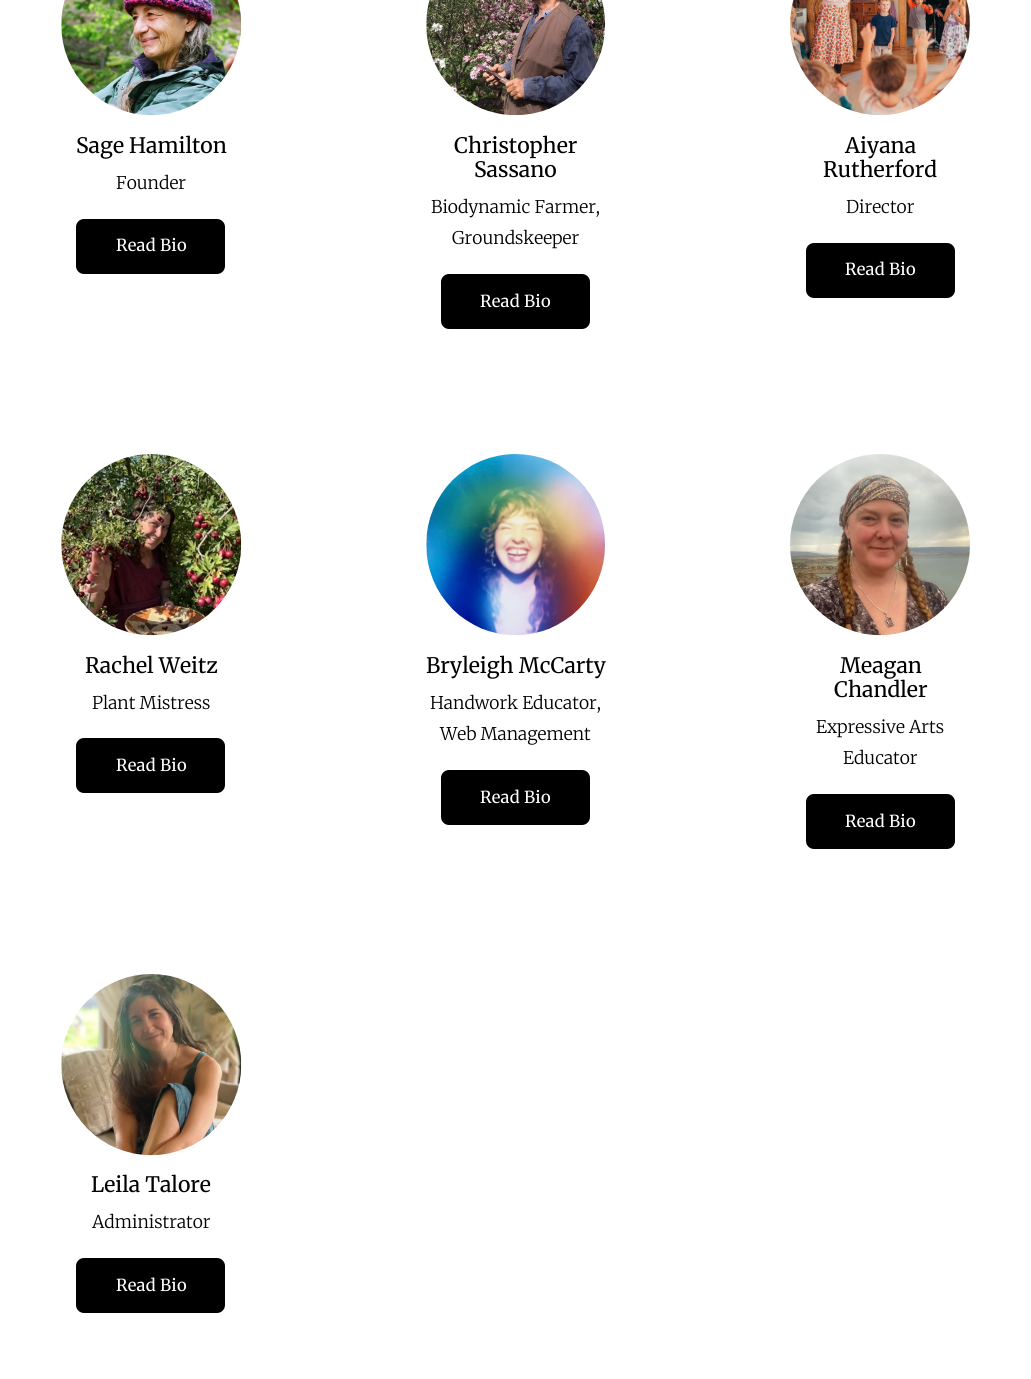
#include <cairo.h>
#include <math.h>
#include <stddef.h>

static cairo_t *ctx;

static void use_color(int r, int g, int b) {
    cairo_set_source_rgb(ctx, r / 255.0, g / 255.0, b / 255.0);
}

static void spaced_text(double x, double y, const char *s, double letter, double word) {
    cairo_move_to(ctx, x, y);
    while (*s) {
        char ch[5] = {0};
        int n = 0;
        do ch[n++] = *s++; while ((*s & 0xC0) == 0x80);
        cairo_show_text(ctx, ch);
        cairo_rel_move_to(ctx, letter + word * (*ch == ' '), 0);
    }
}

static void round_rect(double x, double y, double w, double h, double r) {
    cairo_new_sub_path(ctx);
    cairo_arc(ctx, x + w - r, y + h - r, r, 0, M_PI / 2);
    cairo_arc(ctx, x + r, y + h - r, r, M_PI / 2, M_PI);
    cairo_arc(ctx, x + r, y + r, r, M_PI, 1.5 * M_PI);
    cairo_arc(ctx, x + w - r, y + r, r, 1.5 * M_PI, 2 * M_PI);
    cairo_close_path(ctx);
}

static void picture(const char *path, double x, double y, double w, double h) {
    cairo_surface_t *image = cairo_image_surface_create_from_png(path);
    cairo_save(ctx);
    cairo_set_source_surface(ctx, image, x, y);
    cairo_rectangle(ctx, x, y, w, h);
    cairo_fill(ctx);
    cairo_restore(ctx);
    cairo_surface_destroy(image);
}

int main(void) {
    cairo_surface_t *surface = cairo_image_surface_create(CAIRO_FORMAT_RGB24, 1031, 1379);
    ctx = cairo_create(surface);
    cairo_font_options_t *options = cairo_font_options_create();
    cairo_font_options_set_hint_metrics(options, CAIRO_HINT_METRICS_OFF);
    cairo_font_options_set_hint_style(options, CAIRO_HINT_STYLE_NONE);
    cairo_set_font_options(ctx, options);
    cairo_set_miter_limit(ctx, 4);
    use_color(255, 255, 255);
    cairo_paint(ctx);
    picture("img1.png", 61, 0, 181, 116);
    cairo_select_font_face(ctx, "Merriweather", CAIRO_FONT_SLANT_NORMAL, CAIRO_FONT_WEIGHT_NORMAL);
    cairo_set_font_size(ctx, 21.25);
    use_color(0, 0, 0);
    cairo_move_to(ctx, 76, 153);
    cairo_show_text(ctx, "Sage Hamilton");
    cairo_select_font_face(ctx, "Merriweather Light", CAIRO_FONT_SLANT_NORMAL, CAIRO_FONT_WEIGHT_NORMAL);
    cairo_set_font_size(ctx, 17.5);
    cairo_move_to(ctx, 116, 189);
    cairo_show_text(ctx, "Founder");
    round_rect(76, 219, 149, 55, 8);
    cairo_fill(ctx);
    cairo_select_font_face(ctx, "Merriweather", CAIRO_FONT_SLANT_NORMAL, CAIRO_FONT_WEIGHT_NORMAL);
    cairo_set_font_size(ctx, 16.5);
    use_color(255, 255, 255);
    spaced_text(116, 251, "Read Bio", 0.25, 0);
    picture("img2.png", 426, 0, 179, 116);
    cairo_set_font_size(ctx, 21.25);
    use_color(0, 0, 0);
    cairo_move_to(ctx, 454, 153);
    cairo_show_text(ctx, "Christopher");
    cairo_move_to(ctx, 474, 177);
    cairo_show_text(ctx, "Sassano");
    cairo_select_font_face(ctx, "Merriweather Light", CAIRO_FONT_SLANT_NORMAL, CAIRO_FONT_WEIGHT_NORMAL);
    cairo_set_font_size(ctx, 17.5);
    cairo_move_to(ctx, 431, 213);
    cairo_show_text(ctx, "Biodynamic Farmer,");
    cairo_move_to(ctx, 452, 244);
    cairo_show_text(ctx, "Groundskeeper");
    round_rect(441, 274, 149, 55, 8);
    cairo_fill(ctx);
    cairo_select_font_face(ctx, "Merriweather", CAIRO_FONT_SLANT_NORMAL, CAIRO_FONT_WEIGHT_NORMAL);
    cairo_set_font_size(ctx, 16.5);
    use_color(255, 255, 255);
    spaced_text(480, 307, "Read Bio", 0.25, 0);
    picture("img3.png", 790, 0, 180, 115);
    cairo_set_font_size(ctx, 21.25);
    use_color(0, 0, 0);
    cairo_move_to(ctx, 845, 153);
    cairo_show_text(ctx, "Aiyana");
    cairo_move_to(ctx, 823, 177);
    cairo_show_text(ctx, "Rutherford");
    cairo_select_font_face(ctx, "Merriweather Light", CAIRO_FONT_SLANT_NORMAL, CAIRO_FONT_WEIGHT_NORMAL);
    cairo_set_font_size(ctx, 17.5);
    cairo_move_to(ctx, 846, 213);
    cairo_show_text(ctx, "Director");
    round_rect(806, 243, 149, 55, 8);
    cairo_fill(ctx);
    cairo_select_font_face(ctx, "Merriweather", CAIRO_FONT_SLANT_NORMAL, CAIRO_FONT_WEIGHT_NORMAL);
    cairo_set_font_size(ctx, 16.5);
    use_color(255, 255, 255);
    spaced_text(845, 275, "Read Bio", 0.25, 0);
    picture("img4.png", 61, 454, 181, 182);
    cairo_set_font_size(ctx, 21.25);
    use_color(0, 0, 0);
    cairo_move_to(ctx, 85, 673);
    cairo_show_text(ctx, "Rachel Weitz");
    cairo_select_font_face(ctx, "Merriweather Light", CAIRO_FONT_SLANT_NORMAL, CAIRO_FONT_WEIGHT_NORMAL);
    cairo_set_font_size(ctx, 17.5);
    cairo_move_to(ctx, 92, 709);
    cairo_show_text(ctx, "Plant Mistress");
    round_rect(76, 738, 149, 55, 8);
    cairo_fill(ctx);
    cairo_select_font_face(ctx, "Merriweather", CAIRO_FONT_SLANT_NORMAL, CAIRO_FONT_WEIGHT_NORMAL);
    cairo_set_font_size(ctx, 16.5);
    use_color(255, 255, 255);
    spaced_text(116, 771, "Read Bio", 0.25, 0);
    picture("img5.png", 426, 454, 179, 181);
    cairo_set_font_size(ctx, 21.25);
    use_color(0, 0, 0);
    cairo_move_to(ctx, 426, 673);
    cairo_show_text(ctx, "Bryleigh McCarty");
    cairo_select_font_face(ctx, "Merriweather Light", CAIRO_FONT_SLANT_NORMAL, CAIRO_FONT_WEIGHT_NORMAL);
    cairo_set_font_size(ctx, 17.5);
    cairo_move_to(ctx, 430, 709);
    cairo_show_text(ctx, "Handwork Educator,");
    cairo_move_to(ctx, 440, 740);
    cairo_show_text(ctx, "Web Management");
    round_rect(441, 770, 149, 55, 8);
    cairo_fill(ctx);
    cairo_select_font_face(ctx, "Merriweather", CAIRO_FONT_SLANT_NORMAL, CAIRO_FONT_WEIGHT_NORMAL);
    cairo_set_font_size(ctx, 16.5);
    use_color(255, 255, 255);
    spaced_text(480, 803, "Read Bio", 0.25, 0);
    picture("img6.png", 790, 454, 180, 182);
    cairo_set_font_size(ctx, 21.25);
    use_color(0, 0, 0);
    cairo_move_to(ctx, 840, 673);
    cairo_show_text(ctx, "Meagan");
    cairo_move_to(ctx, 834, 697);
    cairo_show_text(ctx, "Chandler");
    cairo_select_font_face(ctx, "Merriweather Light", CAIRO_FONT_SLANT_NORMAL, CAIRO_FONT_WEIGHT_NORMAL);
    cairo_set_font_size(ctx, 17.5);
    cairo_move_to(ctx, 816, 733);
    cairo_show_text(ctx, "Expressive Arts");
    cairo_move_to(ctx, 843, 764);
    cairo_show_text(ctx, "Educator");
    round_rect(806, 794, 149, 55, 8);
    cairo_fill(ctx);
    cairo_select_font_face(ctx, "Merriweather", CAIRO_FONT_SLANT_NORMAL, CAIRO_FONT_WEIGHT_NORMAL);
    cairo_set_font_size(ctx, 16.5);
    use_color(255, 255, 255);
    spaced_text(845, 827, "Read Bio", 0.25, 0);
    picture("img7.png", 61, 974, 181, 182);
    cairo_set_font_size(ctx, 21.25);
    use_color(0, 0, 0);
    cairo_move_to(ctx, 91, 1192);
    cairo_show_text(ctx, "Leila Talore");
    cairo_select_font_face(ctx, "Merriweather Light", CAIRO_FONT_SLANT_NORMAL, CAIRO_FONT_WEIGHT_NORMAL);
    cairo_set_font_size(ctx, 17.5);
    cairo_move_to(ctx, 92, 1228);
    cairo_show_text(ctx, "Administrator");
    round_rect(76, 1258, 149, 55, 8);
    cairo_fill(ctx);
    cairo_select_font_face(ctx, "Merriweather", CAIRO_FONT_SLANT_NORMAL, CAIRO_FONT_WEIGHT_NORMAL);
    cairo_set_font_size(ctx, 16.5);
    use_color(255, 255, 255);
    spaced_text(116, 1291, "Read Bio", 0.25, 0);
    cairo_surface_write_to_png(surface, "result.png");
    cairo_font_options_destroy(options);
    cairo_destroy(ctx);
    cairo_surface_destroy(surface);
    return 0;
}
